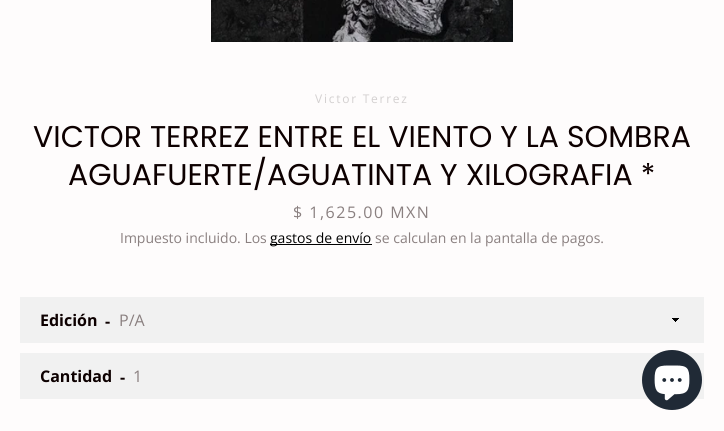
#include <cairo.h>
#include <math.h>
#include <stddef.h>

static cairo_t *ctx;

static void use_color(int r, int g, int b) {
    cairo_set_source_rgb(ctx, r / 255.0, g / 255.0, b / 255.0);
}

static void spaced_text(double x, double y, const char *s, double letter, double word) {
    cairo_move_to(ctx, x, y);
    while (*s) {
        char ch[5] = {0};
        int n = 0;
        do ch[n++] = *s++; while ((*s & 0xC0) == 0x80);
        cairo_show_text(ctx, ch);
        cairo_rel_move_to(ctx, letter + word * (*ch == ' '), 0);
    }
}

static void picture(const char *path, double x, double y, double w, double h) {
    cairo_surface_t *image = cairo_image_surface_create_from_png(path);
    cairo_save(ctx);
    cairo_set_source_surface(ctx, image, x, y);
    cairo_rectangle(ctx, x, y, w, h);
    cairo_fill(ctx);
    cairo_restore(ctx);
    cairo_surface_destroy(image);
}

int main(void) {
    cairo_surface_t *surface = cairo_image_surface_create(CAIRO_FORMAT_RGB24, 724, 431);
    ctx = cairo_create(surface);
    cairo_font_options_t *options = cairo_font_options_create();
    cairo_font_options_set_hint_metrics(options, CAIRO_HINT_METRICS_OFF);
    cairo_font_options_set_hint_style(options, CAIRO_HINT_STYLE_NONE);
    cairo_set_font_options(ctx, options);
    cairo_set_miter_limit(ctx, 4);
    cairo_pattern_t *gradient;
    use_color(254, 252, 252);
    cairo_paint(ctx);
    picture("img1.png", 211, 0, 302, 42);
    cairo_select_font_face(ctx, "Open Sans", CAIRO_FONT_SLANT_NORMAL, CAIRO_FONT_WEIGHT_NORMAL);
    cairo_set_font_size(ctx, 12);
    use_color(211, 208, 208);
    spaced_text(315, 103, "Victor Terrez", 1.75, 0);
    cairo_select_font_face(ctx, "Poppins", CAIRO_FONT_SLANT_NORMAL, CAIRO_FONT_WEIGHT_NORMAL);
    cairo_set_font_size(ctx, 30);
    use_color(13, 0, 0);
    cairo_move_to(ctx, 33, 147);
    cairo_show_text(ctx, "VICTOR TERREZ ENTRE EL VIENTO Y LA SOMBRA");
    cairo_move_to(ctx, 68, 185);
    cairo_show_text(ctx, "AGUAFUERTE/AGUATINTA Y XILOGRAFIA *");
    cairo_select_font_face(ctx, "Open Sans", CAIRO_FONT_SLANT_NORMAL, CAIRO_FONT_WEIGHT_NORMAL);
    cairo_set_font_size(ctx, 16);
    use_color(138, 128, 128);
    spaced_text(293, 218, "$ 1,625.00 MXN", 1.5, 0);
    cairo_set_font_size(ctx, 14);
    cairo_move_to(ctx, 120, 243);
    cairo_show_text(ctx, "Impuesto incluido. Los");
    use_color(0, 0, 0);
    cairo_move_to(ctx, 270, 243);
    cairo_show_text(ctx, "gastos de envío");
    cairo_rectangle(ctx, 270, 244, 102, 1);
    cairo_fill(ctx);
    use_color(138, 128, 128);
    cairo_move_to(ctx, 375, 243);
    cairo_show_text(ctx, "se calculan en la pantalla de pagos.");
    use_color(241, 241, 241);
    cairo_rectangle(ctx, 20, 297, 684, 46);
    cairo_fill(ctx);
    cairo_select_font_face(ctx, "Open Sans", CAIRO_FONT_SLANT_NORMAL, CAIRO_FONT_WEIGHT_BOLD);
    cairo_set_font_size(ctx, 16);
    use_color(13, 0, 0);
    cairo_move_to(ctx, 40, 326);
    cairo_show_text(ctx, "Edición");
    cairo_move_to(ctx, 105, 327);
    cairo_show_text(ctx, "-");
    gradient = cairo_pattern_create_linear(676, 318, 680, 322);
    cairo_pattern_add_color_stop_rgba(gradient, 0.5, 0, 0, 0, 1);
    cairo_pattern_add_color_stop_rgba(gradient, 0.5, 0.945, 0.945, 0.945, 1);
    cairo_set_source(ctx, gradient);
    cairo_pattern_destroy(gradient);
    cairo_rectangle(ctx, 676, 318, 4, 3);
    cairo_fill(ctx);
    gradient = cairo_pattern_create_linear(672, 322, 676, 318);
    cairo_pattern_add_color_stop_rgba(gradient, 0.5, 0.945, 0.945, 0.945, 1);
    cairo_pattern_add_color_stop_rgba(gradient, 0.5, 0, 0, 0, 1);
    cairo_set_source(ctx, gradient);
    cairo_pattern_destroy(gradient);
    cairo_rectangle(ctx, 672, 318, 4, 4);
    cairo_fill(ctx);
    cairo_select_font_face(ctx, "Open Sans", CAIRO_FONT_SLANT_NORMAL, CAIRO_FONT_WEIGHT_NORMAL);
    use_color(138, 128, 128);
    cairo_move_to(ctx, 119, 326);
    cairo_show_text(ctx, "P/A");
    use_color(241, 241, 241);
    cairo_rectangle(ctx, 20, 353, 684, 46);
    cairo_fill(ctx);
    cairo_select_font_face(ctx, "Open Sans", CAIRO_FONT_SLANT_NORMAL, CAIRO_FONT_WEIGHT_BOLD);
    use_color(13, 0, 0);
    cairo_move_to(ctx, 40, 382);
    cairo_show_text(ctx, "Cantidad");
    cairo_move_to(ctx, 120, 383);
    cairo_show_text(ctx, "-");
    cairo_select_font_face(ctx, "Open Sans", CAIRO_FONT_SLANT_NORMAL, CAIRO_FONT_WEIGHT_NORMAL);
    use_color(138, 128, 128);
    cairo_move_to(ctx, 133, 382);
    cairo_show_text(ctx, "1");
    use_color(32, 42, 54);
    cairo_new_path(ctx);
    cairo_arc(ctx, 672, 380, 30, 0, 2 * M_PI);
    cairo_fill(ctx);
    picture("img2.png", 654, 365, 36, 36);
    cairo_surface_write_to_png(surface, "result.png");
    cairo_font_options_destroy(options);
    cairo_destroy(ctx);
    cairo_surface_destroy(surface);
    return 0;
}
